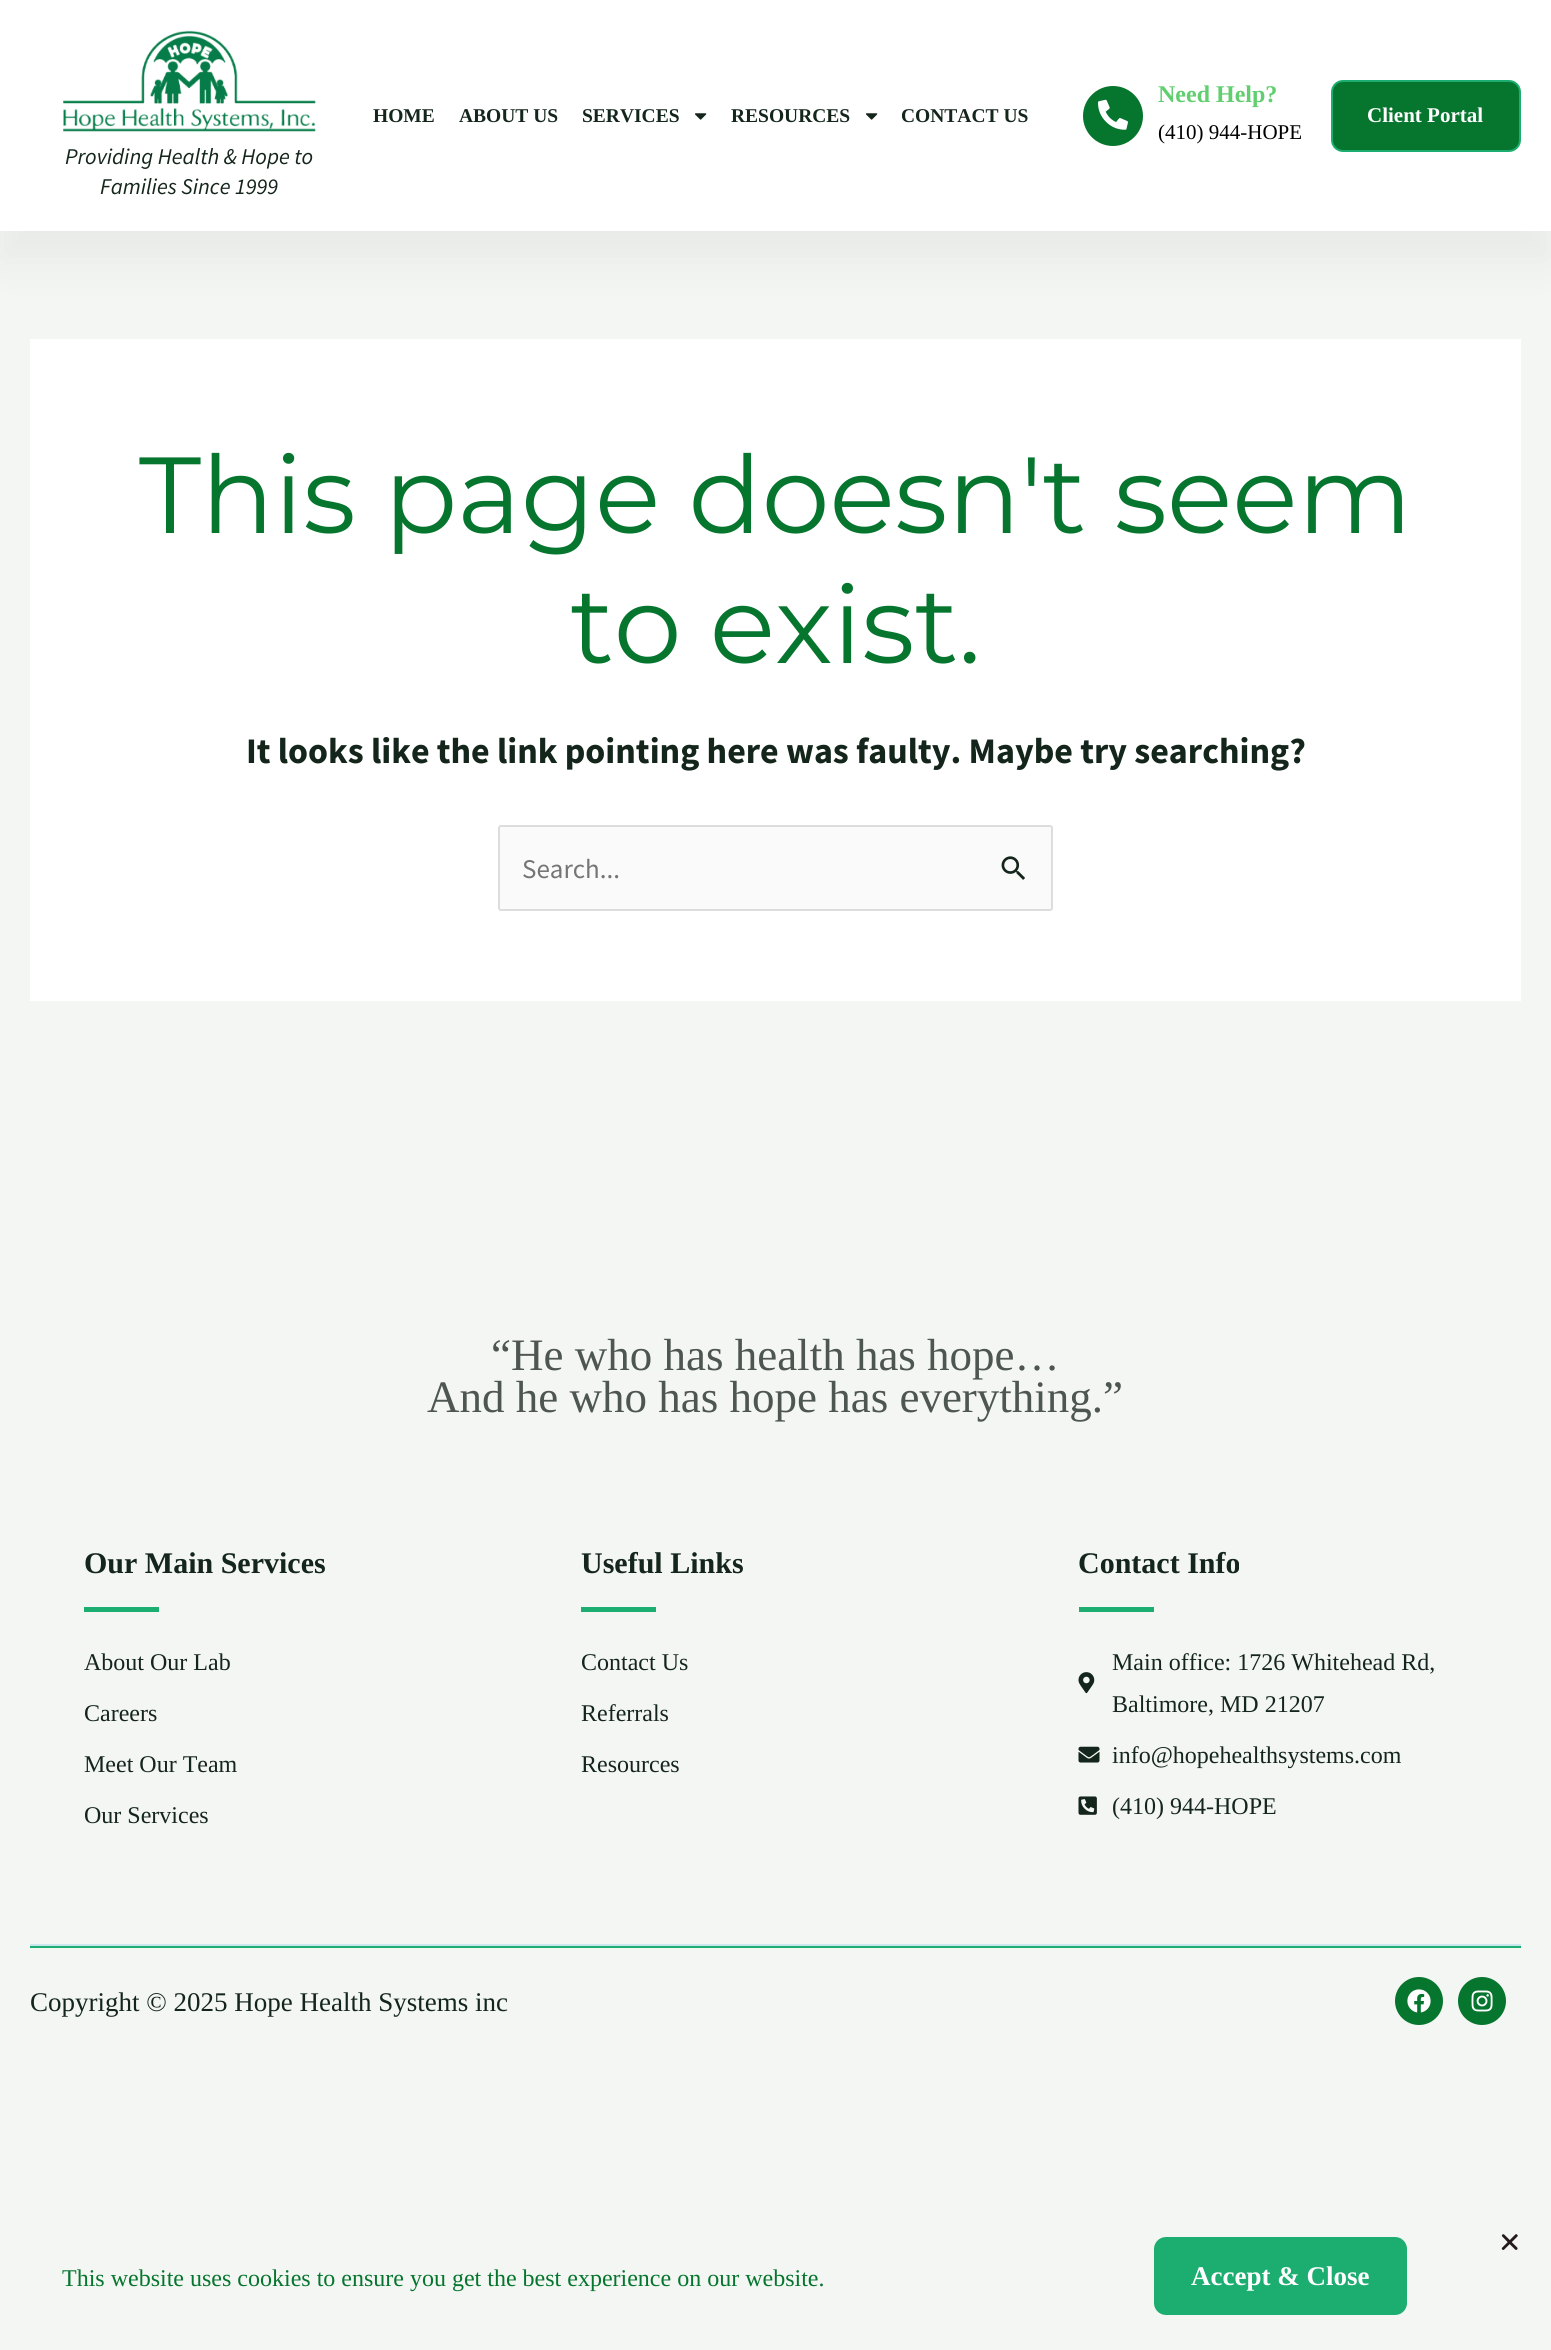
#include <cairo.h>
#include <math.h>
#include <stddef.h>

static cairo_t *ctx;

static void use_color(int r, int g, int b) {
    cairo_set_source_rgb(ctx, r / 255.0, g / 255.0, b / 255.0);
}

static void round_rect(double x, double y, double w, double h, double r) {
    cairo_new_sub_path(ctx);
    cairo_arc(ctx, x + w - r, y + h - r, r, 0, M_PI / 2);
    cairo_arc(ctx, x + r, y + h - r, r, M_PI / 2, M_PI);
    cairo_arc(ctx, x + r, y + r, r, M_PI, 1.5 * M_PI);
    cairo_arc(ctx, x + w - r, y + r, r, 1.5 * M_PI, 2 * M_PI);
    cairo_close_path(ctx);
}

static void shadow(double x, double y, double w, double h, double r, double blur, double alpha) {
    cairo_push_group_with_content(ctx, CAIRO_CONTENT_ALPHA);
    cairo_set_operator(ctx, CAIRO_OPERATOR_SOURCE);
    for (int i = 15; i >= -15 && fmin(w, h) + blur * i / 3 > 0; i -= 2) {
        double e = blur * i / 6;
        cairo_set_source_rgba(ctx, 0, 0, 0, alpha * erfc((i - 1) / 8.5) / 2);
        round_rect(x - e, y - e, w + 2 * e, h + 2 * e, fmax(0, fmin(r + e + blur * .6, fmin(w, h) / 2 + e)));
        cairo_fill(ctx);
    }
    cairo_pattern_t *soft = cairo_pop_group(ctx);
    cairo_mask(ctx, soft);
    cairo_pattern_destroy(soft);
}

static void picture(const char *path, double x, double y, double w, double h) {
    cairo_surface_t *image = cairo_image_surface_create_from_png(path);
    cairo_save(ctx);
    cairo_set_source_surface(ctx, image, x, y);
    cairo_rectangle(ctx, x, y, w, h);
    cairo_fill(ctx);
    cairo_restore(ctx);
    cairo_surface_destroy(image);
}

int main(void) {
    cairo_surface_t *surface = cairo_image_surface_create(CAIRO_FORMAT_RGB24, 1551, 2350);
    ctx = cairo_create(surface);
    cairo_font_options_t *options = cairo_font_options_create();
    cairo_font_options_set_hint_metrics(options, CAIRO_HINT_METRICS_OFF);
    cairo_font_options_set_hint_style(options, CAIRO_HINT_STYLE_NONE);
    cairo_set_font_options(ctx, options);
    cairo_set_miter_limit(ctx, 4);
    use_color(244, 246, 244);
    cairo_paint(ctx);
    use_color(0, 0, 0);
    shadow(0, 30, 1551, 231, 0, 22.5, 0.05);
    use_color(255, 255, 255);
    cairo_rectangle(ctx, 0, 0, 1551, 231);
    cairo_fill(ctx);
    cairo_select_font_face(ctx, "Liberation Serif", CAIRO_FONT_SLANT_NORMAL, CAIRO_FONT_WEIGHT_BOLD);
    cairo_set_font_size(ctx, 19.5);
    use_color(20, 38, 28);
    cairo_move_to(ctx, 373, 122);
    cairo_show_text(ctx, "HOME");
    cairo_move_to(ctx, 459, 122);
    cairo_show_text(ctx, "ABOUT US");
    cairo_move_to(ctx, 582, 122);
    cairo_show_text(ctx, "SERVICES");
    picture("img1.png", 695, 113, 12, 7);
    cairo_move_to(ctx, 731, 122);
    cairo_show_text(ctx, "RESOURCES");
    picture("img1.png", 866, 113, 12, 7);
    cairo_move_to(ctx, 901, 122);
    cairo_show_text(ctx, "CONTACT US");
    use_color(6, 117, 46);
    cairo_new_path(ctx);
    cairo_arc(ctx, 1113, 116, 30, 0, 2 * M_PI);
    cairo_fill(ctx);
    picture("img2.png", 1098, 99, 30, 31);
    cairo_set_font_size(ctx, 24);
    use_color(97, 206, 112);
    cairo_move_to(ctx, 1158, 102);
    cairo_show_text(ctx, "Need Help?");
    cairo_select_font_face(ctx, "Liberation Serif", CAIRO_FONT_SLANT_NORMAL, CAIRO_FONT_WEIGHT_NORMAL);
    cairo_set_font_size(ctx, 21);
    use_color(0, 0, 0);
    cairo_move_to(ctx, 1158, 139);
    cairo_show_text(ctx, "(410) 944-HOPE");
    use_color(6, 117, 46);
    round_rect(1332, 81, 188, 70, 11);
    cairo_fill_preserve(ctx);
    use_color(27, 174, 112);
    cairo_stroke(ctx);
    cairo_select_font_face(ctx, "Liberation Serif", CAIRO_FONT_SLANT_NORMAL, CAIRO_FONT_WEIGHT_BOLD);
    use_color(255, 255, 255);
    cairo_move_to(ctx, 1367, 122);
    cairo_show_text(ctx, "Client Portal");
    picture("img3.png", 63, 30, 253, 102);
    cairo_select_font_face(ctx, "Source Sans Pro", CAIRO_FONT_SLANT_ITALIC, CAIRO_FONT_WEIGHT_NORMAL);
    cairo_set_font_size(ctx, 22.5);
    use_color(20, 38, 28);
    cairo_move_to(ctx, 65, 164);
    cairo_show_text(ctx, "Providing Health & Hope to");
    cairo_move_to(ctx, 100, 194);
    cairo_show_text(ctx, "Families Since 1999");
    use_color(255, 255, 255);
    cairo_rectangle(ctx, 30, 339, 1491, 662);
    cairo_fill(ctx);
    cairo_select_font_face(ctx, "Montserrat", CAIRO_FONT_SLANT_NORMAL, CAIRO_FONT_WEIGHT_NORMAL);
    cairo_set_font_size(ctx, 108);
    use_color(6, 117, 46);
    cairo_move_to(ctx, 139, 533);
    cairo_show_text(ctx, "This page doesn't seem");
    cairo_move_to(ctx, 570, 663);
    cairo_show_text(ctx, "to exist.");
    cairo_select_font_face(ctx, "Source Sans Pro", CAIRO_FONT_SLANT_NORMAL, CAIRO_FONT_WEIGHT_BOLD);
    cairo_set_font_size(ctx, 36);
    use_color(20, 38, 28);
    cairo_move_to(ctx, 246, 763);
    cairo_show_text(ctx, "It looks like the link pointing here was faulty. Maybe try searching?");
    use_color(250, 250, 250);
    round_rect(499, 826, 553, 84, 2);
    cairo_fill_preserve(ctx);
    use_color(221, 221, 221);
    cairo_stroke(ctx);
    cairo_select_font_face(ctx, "Source Sans Pro", CAIRO_FONT_SLANT_NORMAL, CAIRO_FONT_WEIGHT_NORMAL);
    cairo_set_font_size(ctx, 27);
    use_color(117, 117, 117);
    cairo_move_to(ctx, 522, 878);
    cairo_show_text(ctx, "Search...");
    picture("img4.png", 1001, 856, 24, 24);
    cairo_select_font_face(ctx, "Liberation Serif", CAIRO_FONT_SLANT_NORMAL, CAIRO_FONT_WEIGHT_NORMAL);
    cairo_set_font_size(ctx, 45);
    use_color(78, 86, 82);
    cairo_move_to(ctx, 491, 1370);
    cairo_show_text(ctx, "“He who has health has hope…");
    cairo_move_to(ctx, 427, 1412);
    cairo_show_text(ctx, "And he who has hope has everything.”");
    use_color(203, 230, 236);
    cairo_rectangle(ctx, 30, 1944, 1491, 2);
    cairo_fill(ctx);
    cairo_select_font_face(ctx, "Liberation Serif", CAIRO_FONT_SLANT_NORMAL, CAIRO_FONT_WEIGHT_BOLD);
    cairo_set_font_size(ctx, 30);
    use_color(20, 38, 28);
    cairo_move_to(ctx, 84, 1573);
    cairo_show_text(ctx, "Our Main Services");
    use_color(27, 174, 112);
    cairo_rectangle(ctx, 84, 1607, 75, 5);
    cairo_fill(ctx);
    cairo_select_font_face(ctx, "Liberation Serif", CAIRO_FONT_SLANT_NORMAL, CAIRO_FONT_WEIGHT_NORMAL);
    cairo_set_font_size(ctx, 24);
    use_color(20, 38, 28);
    cairo_move_to(ctx, 84, 1670);
    cairo_show_text(ctx, "About Our Lab");
    cairo_move_to(ctx, 84, 1721);
    cairo_show_text(ctx, "Careers");
    cairo_move_to(ctx, 84, 1772);
    cairo_show_text(ctx, "Meet Our Team");
    cairo_move_to(ctx, 84, 1823);
    cairo_show_text(ctx, "Our Services");
    cairo_select_font_face(ctx, "Liberation Serif", CAIRO_FONT_SLANT_NORMAL, CAIRO_FONT_WEIGHT_BOLD);
    cairo_set_font_size(ctx, 30);
    cairo_move_to(ctx, 581, 1573);
    cairo_show_text(ctx, "Useful Links");
    use_color(27, 174, 112);
    cairo_rectangle(ctx, 581, 1607, 75, 5);
    cairo_fill(ctx);
    cairo_select_font_face(ctx, "Liberation Serif", CAIRO_FONT_SLANT_NORMAL, CAIRO_FONT_WEIGHT_NORMAL);
    cairo_set_font_size(ctx, 24);
    use_color(20, 38, 28);
    cairo_move_to(ctx, 581, 1670);
    cairo_show_text(ctx, "Contact Us");
    cairo_move_to(ctx, 581, 1721);
    cairo_show_text(ctx, "Referrals");
    cairo_move_to(ctx, 581, 1772);
    cairo_show_text(ctx, "Resources");
    cairo_select_font_face(ctx, "Liberation Serif", CAIRO_FONT_SLANT_NORMAL, CAIRO_FONT_WEIGHT_BOLD);
    cairo_set_font_size(ctx, 30);
    cairo_move_to(ctx, 1078, 1573);
    cairo_show_text(ctx, "Contact Info");
    use_color(27, 174, 112);
    cairo_rectangle(ctx, 1079, 1607, 75, 5);
    cairo_fill(ctx);
    picture("img5.png", 1078, 1672, 17, 22);
    cairo_select_font_face(ctx, "Liberation Serif", CAIRO_FONT_SLANT_NORMAL, CAIRO_FONT_WEIGHT_NORMAL);
    cairo_set_font_size(ctx, 24);
    use_color(20, 38, 28);
    cairo_move_to(ctx, 1112, 1670);
    cairo_show_text(ctx, "Main office: 1726 Whitehead Rd,");
    cairo_move_to(ctx, 1112, 1712);
    cairo_show_text(ctx, "Baltimore, MD 21207");
    picture("img6.png", 1078, 1746, 22, 17);
    cairo_move_to(ctx, 1112, 1763);
    cairo_show_text(ctx, "info@hopehealthsystems.com");
    picture("img7.png", 1078, 1796, 19, 19);
    cairo_move_to(ctx, 1112, 1814);
    cairo_show_text(ctx, "(410) 944-HOPE");
    use_color(27, 174, 112);
    cairo_rectangle(ctx, 30, 1946, 1491, 2);
    cairo_fill(ctx);
    cairo_set_font_size(ctx, 27);
    use_color(20, 38, 28);
    cairo_move_to(ctx, 30, 2011);
    cairo_show_text(ctx, "Copyright © 2025 Hope Health Systems inc");
    use_color(6, 117, 46);
    cairo_new_path(ctx);
    cairo_arc(ctx, 1419, 2001, 24, 0, 2 * M_PI);
    cairo_fill(ctx);
    picture("img8.png", 1407, 1989, 24, 24);
    cairo_arc(ctx, 1482, 2001, 24, 0, 2 * M_PI);
    cairo_fill(ctx);
    picture("img9.png", 1471, 1990, 22, 22);
    picture("img10.png", 1501, 2234, 17, 16);
    cairo_set_font_size(ctx, 24);
    cairo_move_to(ctx, 62, 2286);
    cairo_show_text(ctx, "This website uses cookies to ensure you get the best experience on our website.");
    use_color(27, 174, 112);
    round_rect(1155, 2238, 251, 76, 11);
    cairo_fill_preserve(ctx);
    cairo_stroke(ctx);
    cairo_select_font_face(ctx, "Liberation Serif", CAIRO_FONT_SLANT_NORMAL, CAIRO_FONT_WEIGHT_BOLD);
    cairo_set_font_size(ctx, 27);
    use_color(255, 255, 255);
    cairo_move_to(ctx, 1191, 2285);
    cairo_show_text(ctx, "Accept & Close");
    cairo_surface_write_to_png(surface, "result.png");
    cairo_font_options_destroy(options);
    cairo_destroy(ctx);
    cairo_surface_destroy(surface);
    return 0;
}
